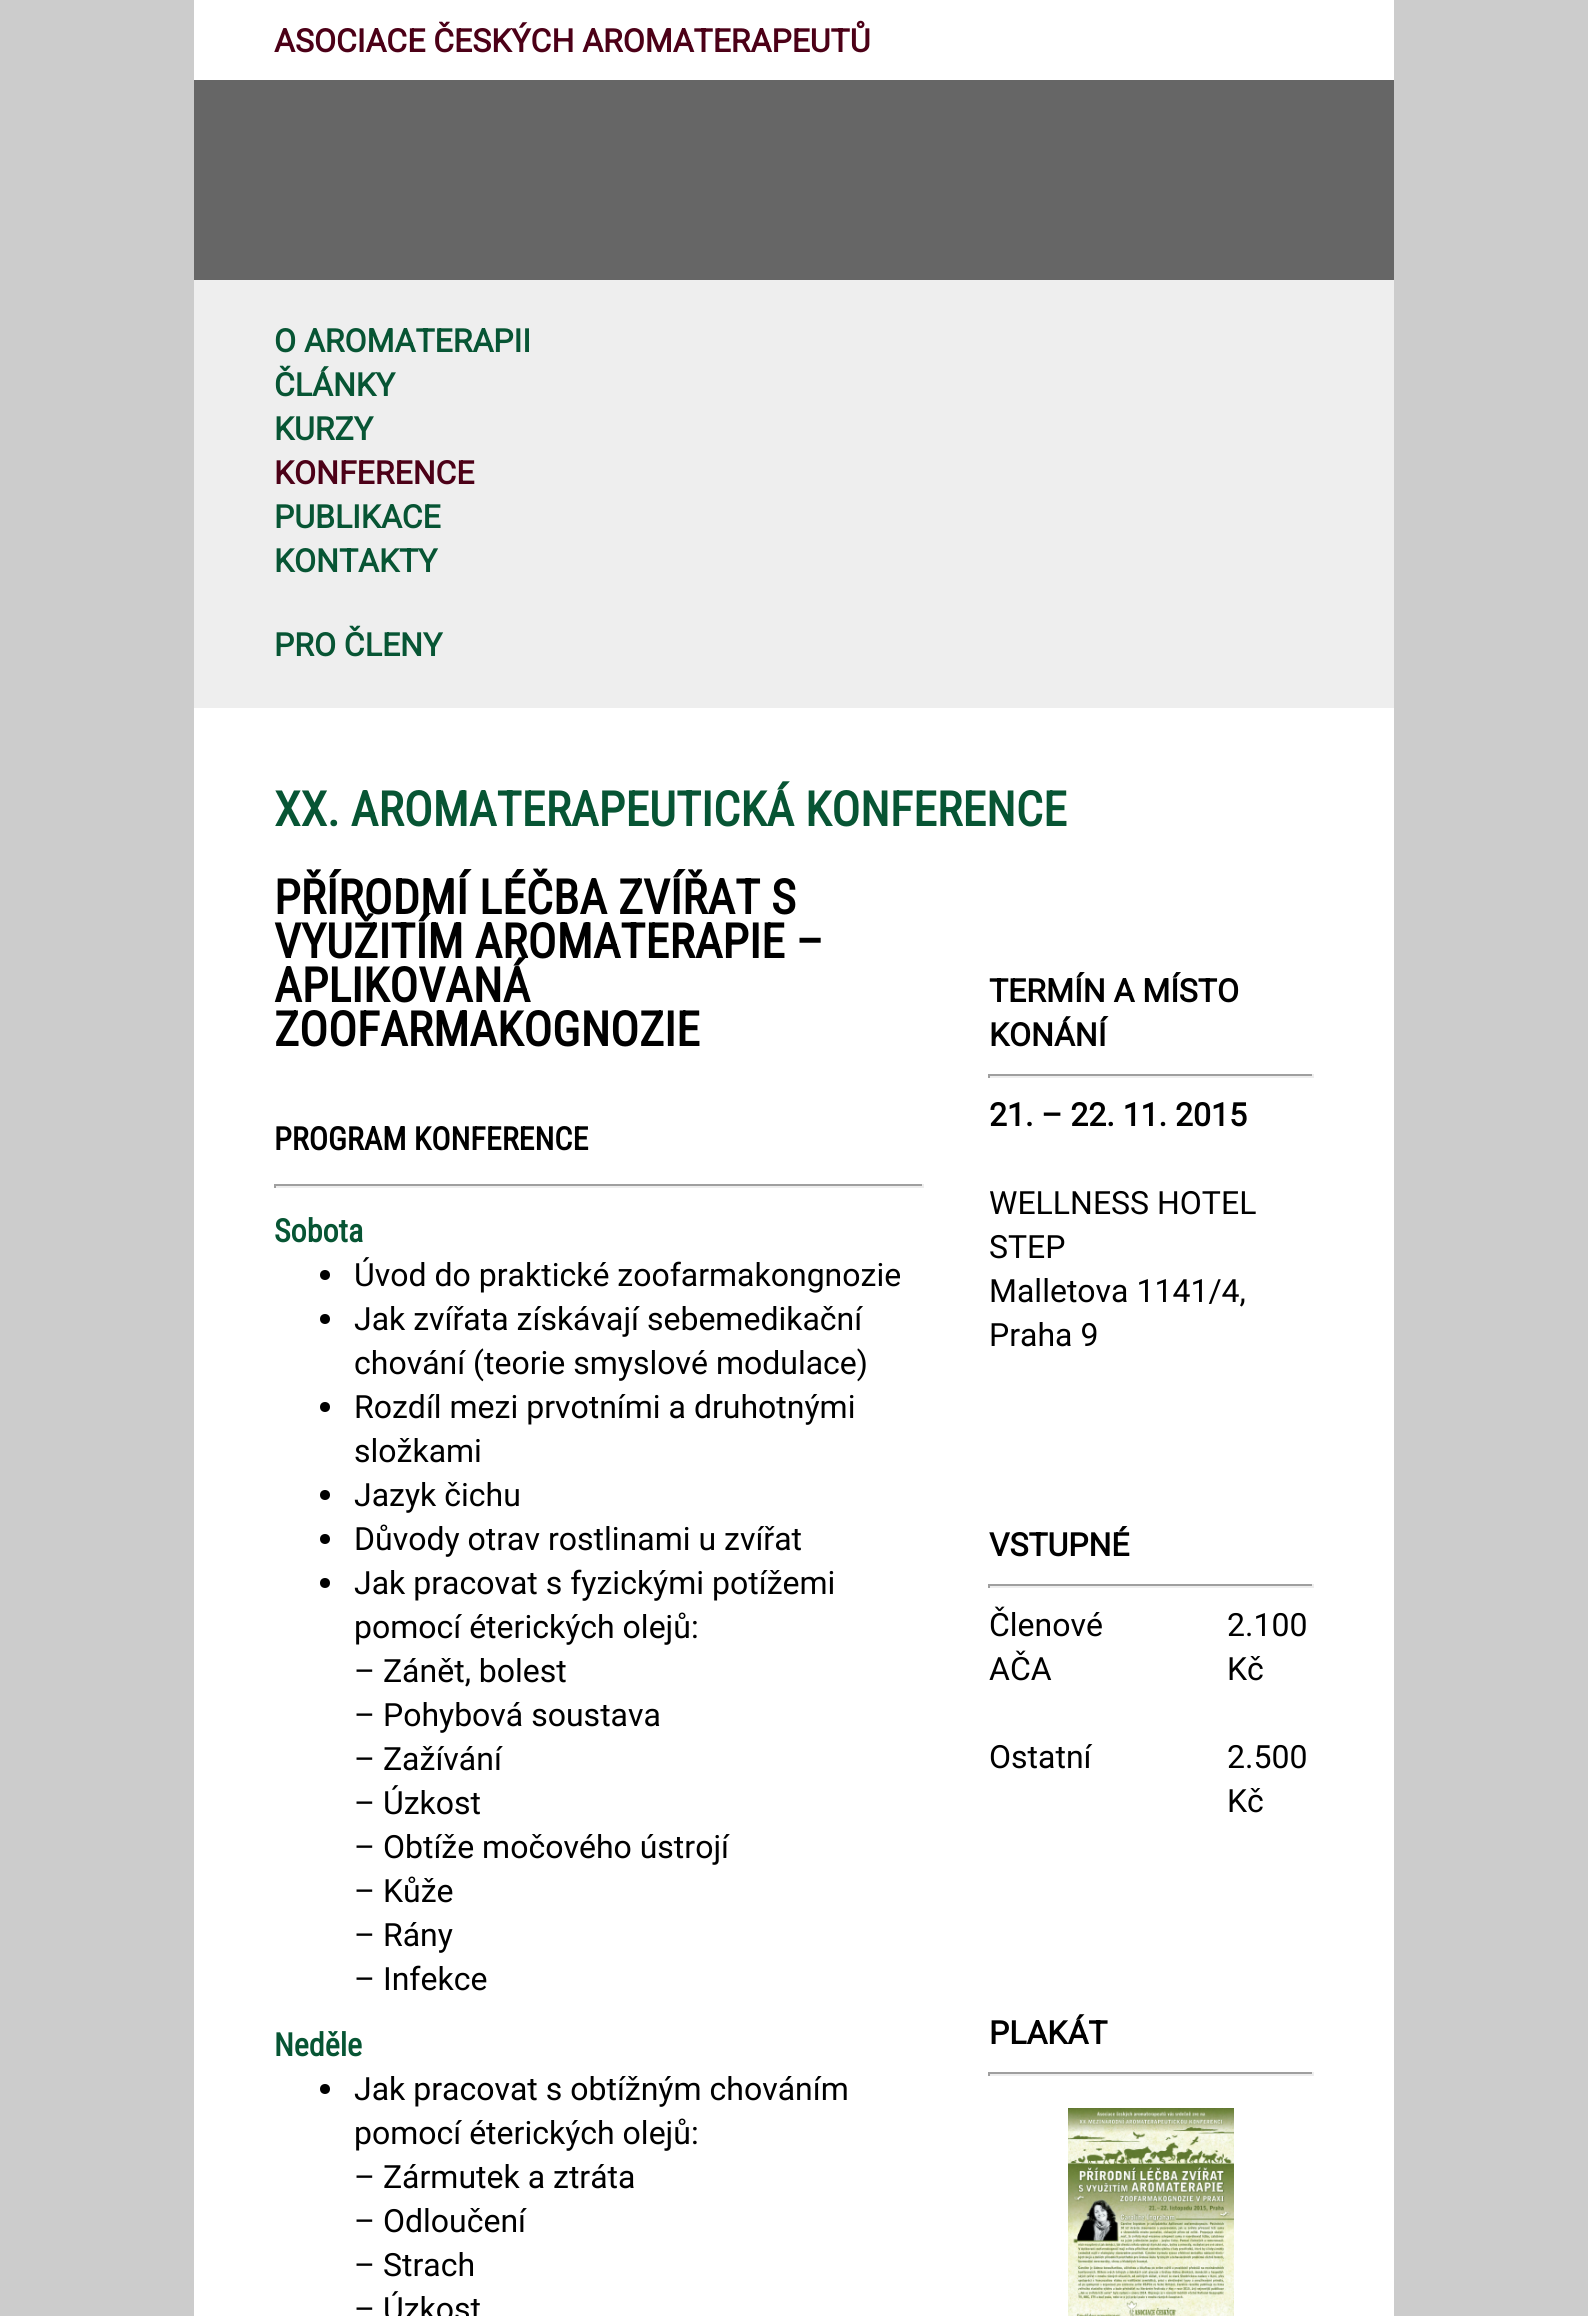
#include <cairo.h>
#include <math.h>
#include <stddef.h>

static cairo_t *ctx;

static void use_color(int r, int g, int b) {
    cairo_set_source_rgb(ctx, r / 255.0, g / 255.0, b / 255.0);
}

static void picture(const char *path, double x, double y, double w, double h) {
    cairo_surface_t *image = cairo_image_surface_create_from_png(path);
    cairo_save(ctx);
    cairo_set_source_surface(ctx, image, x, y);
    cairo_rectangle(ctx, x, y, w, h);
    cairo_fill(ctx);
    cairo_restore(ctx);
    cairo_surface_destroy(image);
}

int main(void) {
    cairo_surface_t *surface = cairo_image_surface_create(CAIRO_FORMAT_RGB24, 1588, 2316);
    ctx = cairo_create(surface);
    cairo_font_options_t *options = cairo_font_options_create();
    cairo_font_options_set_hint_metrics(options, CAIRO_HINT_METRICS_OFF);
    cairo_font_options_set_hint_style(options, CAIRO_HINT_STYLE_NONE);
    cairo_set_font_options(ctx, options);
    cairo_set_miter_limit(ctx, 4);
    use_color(204, 204, 204);
    cairo_paint(ctx);
    use_color(255, 255, 255);
    cairo_rectangle(ctx, 194, 0, 1200, 80);
    cairo_fill(ctx);
    use_color(102, 102, 102);
    cairo_rectangle(ctx, 194, 80, 1200, 200);
    cairo_fill(ctx);
    use_color(238, 238, 238);
    cairo_rectangle(ctx, 194, 280, 1200, 428);
    cairo_fill(ctx);
    cairo_select_font_face(ctx, "Roboto", CAIRO_FONT_SLANT_NORMAL, CAIRO_FONT_WEIGHT_BOLD);
    cairo_set_font_size(ctx, 32);
    use_color(76, 0, 23);
    cairo_move_to(ctx, 274, 52);
    cairo_show_text(ctx, "ASOCIACE ČESKÝCH AROMATERAPEUTŮ");
    use_color(7, 85, 52);
    cairo_move_to(ctx, 274, 352);
    cairo_show_text(ctx, "O AROMATERAPII");
    cairo_move_to(ctx, 274, 396);
    cairo_show_text(ctx, "ČLÁNKY");
    cairo_move_to(ctx, 274, 440);
    cairo_show_text(ctx, "KURZY");
    use_color(76, 0, 23);
    cairo_move_to(ctx, 274, 484);
    cairo_show_text(ctx, "KONFERENCE");
    use_color(7, 85, 52);
    cairo_move_to(ctx, 274, 528);
    cairo_show_text(ctx, "PUBLIKACE");
    cairo_move_to(ctx, 274, 572);
    cairo_show_text(ctx, "KONTAKTY");
    cairo_move_to(ctx, 274, 656);
    cairo_show_text(ctx, "PRO ČLENY");
    use_color(255, 255, 255);
    cairo_rectangle(ctx, 194, 708, 1200, 1608);
    cairo_fill(ctx);
    cairo_select_font_face(ctx, "Roboto Condensed", CAIRO_FONT_SLANT_NORMAL, CAIRO_FONT_WEIGHT_BOLD);
    cairo_set_font_size(ctx, 48);
    use_color(7, 85, 52);
    cairo_move_to(ctx, 274, 826);
    cairo_show_text(ctx, "XX. AROMATERAPEUTICKÁ KONFERENCE");
    use_color(0, 0, 0);
    cairo_move_to(ctx, 274, 914);
    cairo_show_text(ctx, "PŘÍRODMÍ LÉČBA ZVÍŘAT S");
    cairo_move_to(ctx, 274, 958);
    cairo_show_text(ctx, "VYUŽITÍM AROMATERAPIE –");
    cairo_move_to(ctx, 274, 1002);
    cairo_show_text(ctx, "APLIKOVANÁ");
    cairo_move_to(ctx, 274, 1046);
    cairo_show_text(ctx, "ZOOFARMAKOGNOZIE");
    cairo_set_font_size(ctx, 32);
    cairo_move_to(ctx, 274, 1150);
    cairo_show_text(ctx, "PROGRAM KONFERENCE");
    use_color(159, 159, 159);
    cairo_rectangle(ctx, 274, 1184, 650, 2);
    cairo_fill(ctx);
    use_color(238, 238, 238);
    cairo_rectangle(ctx, 922, 1184, 2, 4);
    cairo_fill(ctx);
    cairo_rectangle(ctx, 274, 1186, 650, 2);
    cairo_fill(ctx);
    use_color(159, 159, 159);
    cairo_rectangle(ctx, 274, 1184, 2, 4);
    cairo_fill(ctx);
    use_color(7, 85, 52);
    cairo_move_to(ctx, 274, 1242);
    cairo_show_text(ctx, "Sobota");
    use_color(0, 0, 0);
    cairo_new_path(ctx);
    cairo_arc(ctx, 325, 1275, 5, 0, 2 * M_PI);
    cairo_fill(ctx);
    cairo_select_font_face(ctx, "Roboto", CAIRO_FONT_SLANT_NORMAL, CAIRO_FONT_WEIGHT_NORMAL);
    cairo_move_to(ctx, 354, 1286);
    cairo_show_text(ctx, "Úvod do praktické zoofarmakongnozie");
    cairo_new_path(ctx);
    cairo_arc(ctx, 325, 1319, 5, 0, 2 * M_PI);
    cairo_fill(ctx);
    cairo_move_to(ctx, 354, 1330);
    cairo_show_text(ctx, "Jak zvířata získávají sebemedikační");
    cairo_move_to(ctx, 354, 1374);
    cairo_show_text(ctx, "chování (teorie smyslové modulace)");
    cairo_new_path(ctx);
    cairo_arc(ctx, 325, 1407, 5, 0, 2 * M_PI);
    cairo_fill(ctx);
    cairo_move_to(ctx, 354, 1418);
    cairo_show_text(ctx, "Rozdíl mezi prvotními a druhotnými");
    cairo_move_to(ctx, 354, 1462);
    cairo_show_text(ctx, "složkami");
    cairo_new_path(ctx);
    cairo_arc(ctx, 325, 1495, 5, 0, 2 * M_PI);
    cairo_fill(ctx);
    cairo_move_to(ctx, 354, 1506);
    cairo_show_text(ctx, "Jazyk čichu");
    cairo_new_path(ctx);
    cairo_arc(ctx, 325, 1539, 5, 0, 2 * M_PI);
    cairo_fill(ctx);
    cairo_move_to(ctx, 354, 1550);
    cairo_show_text(ctx, "Důvody otrav rostlinami u zvířat");
    cairo_new_path(ctx);
    cairo_arc(ctx, 325, 1583, 5, 0, 2 * M_PI);
    cairo_fill(ctx);
    cairo_move_to(ctx, 354, 1594);
    cairo_show_text(ctx, "Jak pracovat s fyzickými potížemi");
    cairo_move_to(ctx, 354, 1638);
    cairo_show_text(ctx, "pomocí éterických olejů:");
    cairo_move_to(ctx, 354, 1682);
    cairo_show_text(ctx, "– Zánět, bolest");
    cairo_move_to(ctx, 354, 1726);
    cairo_show_text(ctx, "– Pohybová soustava");
    cairo_move_to(ctx, 354, 1770);
    cairo_show_text(ctx, "– Zažívání");
    cairo_move_to(ctx, 354, 1814);
    cairo_show_text(ctx, "– Úzkost");
    cairo_move_to(ctx, 354, 1858);
    cairo_show_text(ctx, "– Obtíže močového ústrojí");
    cairo_move_to(ctx, 354, 1902);
    cairo_show_text(ctx, "– Kůže");
    cairo_move_to(ctx, 354, 1946);
    cairo_show_text(ctx, "– Rány");
    cairo_move_to(ctx, 354, 1990);
    cairo_show_text(ctx, "– Infekce");
    cairo_select_font_face(ctx, "Roboto Condensed", CAIRO_FONT_SLANT_NORMAL, CAIRO_FONT_WEIGHT_BOLD);
    use_color(7, 85, 52);
    cairo_move_to(ctx, 274, 2056);
    cairo_show_text(ctx, "Neděle");
    use_color(0, 0, 0);
    cairo_new_path(ctx);
    cairo_arc(ctx, 325, 2089, 5, 0, 2 * M_PI);
    cairo_fill(ctx);
    cairo_select_font_face(ctx, "Roboto", CAIRO_FONT_SLANT_NORMAL, CAIRO_FONT_WEIGHT_NORMAL);
    cairo_move_to(ctx, 354, 2100);
    cairo_show_text(ctx, "Jak pracovat s obtížným chováním");
    cairo_move_to(ctx, 354, 2144);
    cairo_show_text(ctx, "pomocí éterických olejů:");
    cairo_move_to(ctx, 354, 2188);
    cairo_show_text(ctx, "– Zármutek a ztráta");
    cairo_move_to(ctx, 354, 2232);
    cairo_show_text(ctx, "– Odloučení");
    cairo_move_to(ctx, 354, 2276);
    cairo_show_text(ctx, "– Strach");
    cairo_move_to(ctx, 354, 2320);
    cairo_show_text(ctx, "– Úzkost");
    cairo_select_font_face(ctx, "Roboto", CAIRO_FONT_SLANT_NORMAL, CAIRO_FONT_WEIGHT_BOLD);
    cairo_move_to(ctx, 989, 1002);
    cairo_show_text(ctx, "TERMÍN A MÍSTO");
    cairo_move_to(ctx, 989, 1046);
    cairo_show_text(ctx, "KONÁNÍ");
    use_color(159, 159, 159);
    cairo_rectangle(ctx, 988, 1074, 326, 2);
    cairo_fill(ctx);
    use_color(238, 238, 238);
    cairo_rectangle(ctx, 1312, 1074, 2, 4);
    cairo_fill(ctx);
    cairo_rectangle(ctx, 988, 1076, 326, 2);
    cairo_fill(ctx);
    use_color(159, 159, 159);
    cairo_rectangle(ctx, 988, 1074, 2, 4);
    cairo_fill(ctx);
    use_color(0, 0, 0);
    cairo_move_to(ctx, 989, 1126);
    cairo_show_text(ctx, "21. – 22. 11. 2015");
    cairo_select_font_face(ctx, "Roboto", CAIRO_FONT_SLANT_NORMAL, CAIRO_FONT_WEIGHT_NORMAL);
    cairo_move_to(ctx, 989, 1214);
    cairo_show_text(ctx, "WELLNESS HOTEL");
    cairo_move_to(ctx, 989, 1258);
    cairo_show_text(ctx, "STEP");
    cairo_move_to(ctx, 989, 1302);
    cairo_show_text(ctx, "Malletova 1141/4,");
    cairo_move_to(ctx, 989, 1346);
    cairo_show_text(ctx, "Praha 9");
    cairo_select_font_face(ctx, "Roboto", CAIRO_FONT_SLANT_NORMAL, CAIRO_FONT_WEIGHT_BOLD);
    cairo_move_to(ctx, 989, 1556);
    cairo_show_text(ctx, "VSTUPNÉ");
    use_color(159, 159, 159);
    cairo_rectangle(ctx, 988, 1584, 326, 2);
    cairo_fill(ctx);
    use_color(238, 238, 238);
    cairo_rectangle(ctx, 1312, 1584, 2, 4);
    cairo_fill(ctx);
    cairo_rectangle(ctx, 988, 1586, 326, 2);
    cairo_fill(ctx);
    use_color(159, 159, 159);
    cairo_rectangle(ctx, 988, 1584, 2, 4);
    cairo_fill(ctx);
    cairo_select_font_face(ctx, "Roboto", CAIRO_FONT_SLANT_NORMAL, CAIRO_FONT_WEIGHT_NORMAL);
    use_color(0, 0, 0);
    cairo_move_to(ctx, 989, 1636);
    cairo_show_text(ctx, "Členové");
    cairo_move_to(ctx, 989, 1680);
    cairo_show_text(ctx, "AČA");
    cairo_move_to(ctx, 989, 1768);
    cairo_show_text(ctx, "Ostatní");
    cairo_move_to(ctx, 1227, 1636);
    cairo_show_text(ctx, "2.100");
    cairo_move_to(ctx, 1227, 1680);
    cairo_show_text(ctx, "Kč");
    cairo_move_to(ctx, 1227, 1768);
    cairo_show_text(ctx, "2.500");
    cairo_move_to(ctx, 1227, 1812);
    cairo_show_text(ctx, "Kč");
    cairo_select_font_face(ctx, "Roboto", CAIRO_FONT_SLANT_NORMAL, CAIRO_FONT_WEIGHT_BOLD);
    cairo_move_to(ctx, 989, 2044);
    cairo_show_text(ctx, "PLAKÁT");
    use_color(159, 159, 159);
    cairo_rectangle(ctx, 988, 2072, 326, 2);
    cairo_fill(ctx);
    use_color(238, 238, 238);
    cairo_rectangle(ctx, 1312, 2072, 2, 4);
    cairo_fill(ctx);
    cairo_rectangle(ctx, 988, 2074, 326, 2);
    cairo_fill(ctx);
    use_color(159, 159, 159);
    cairo_rectangle(ctx, 988, 2072, 2, 4);
    cairo_fill(ctx);
    picture("img1.png", 1068, 2108, 166, 208);
    cairo_surface_write_to_png(surface, "result.png");
    cairo_font_options_destroy(options);
    cairo_destroy(ctx);
    cairo_surface_destroy(surface);
    return 0;
}
